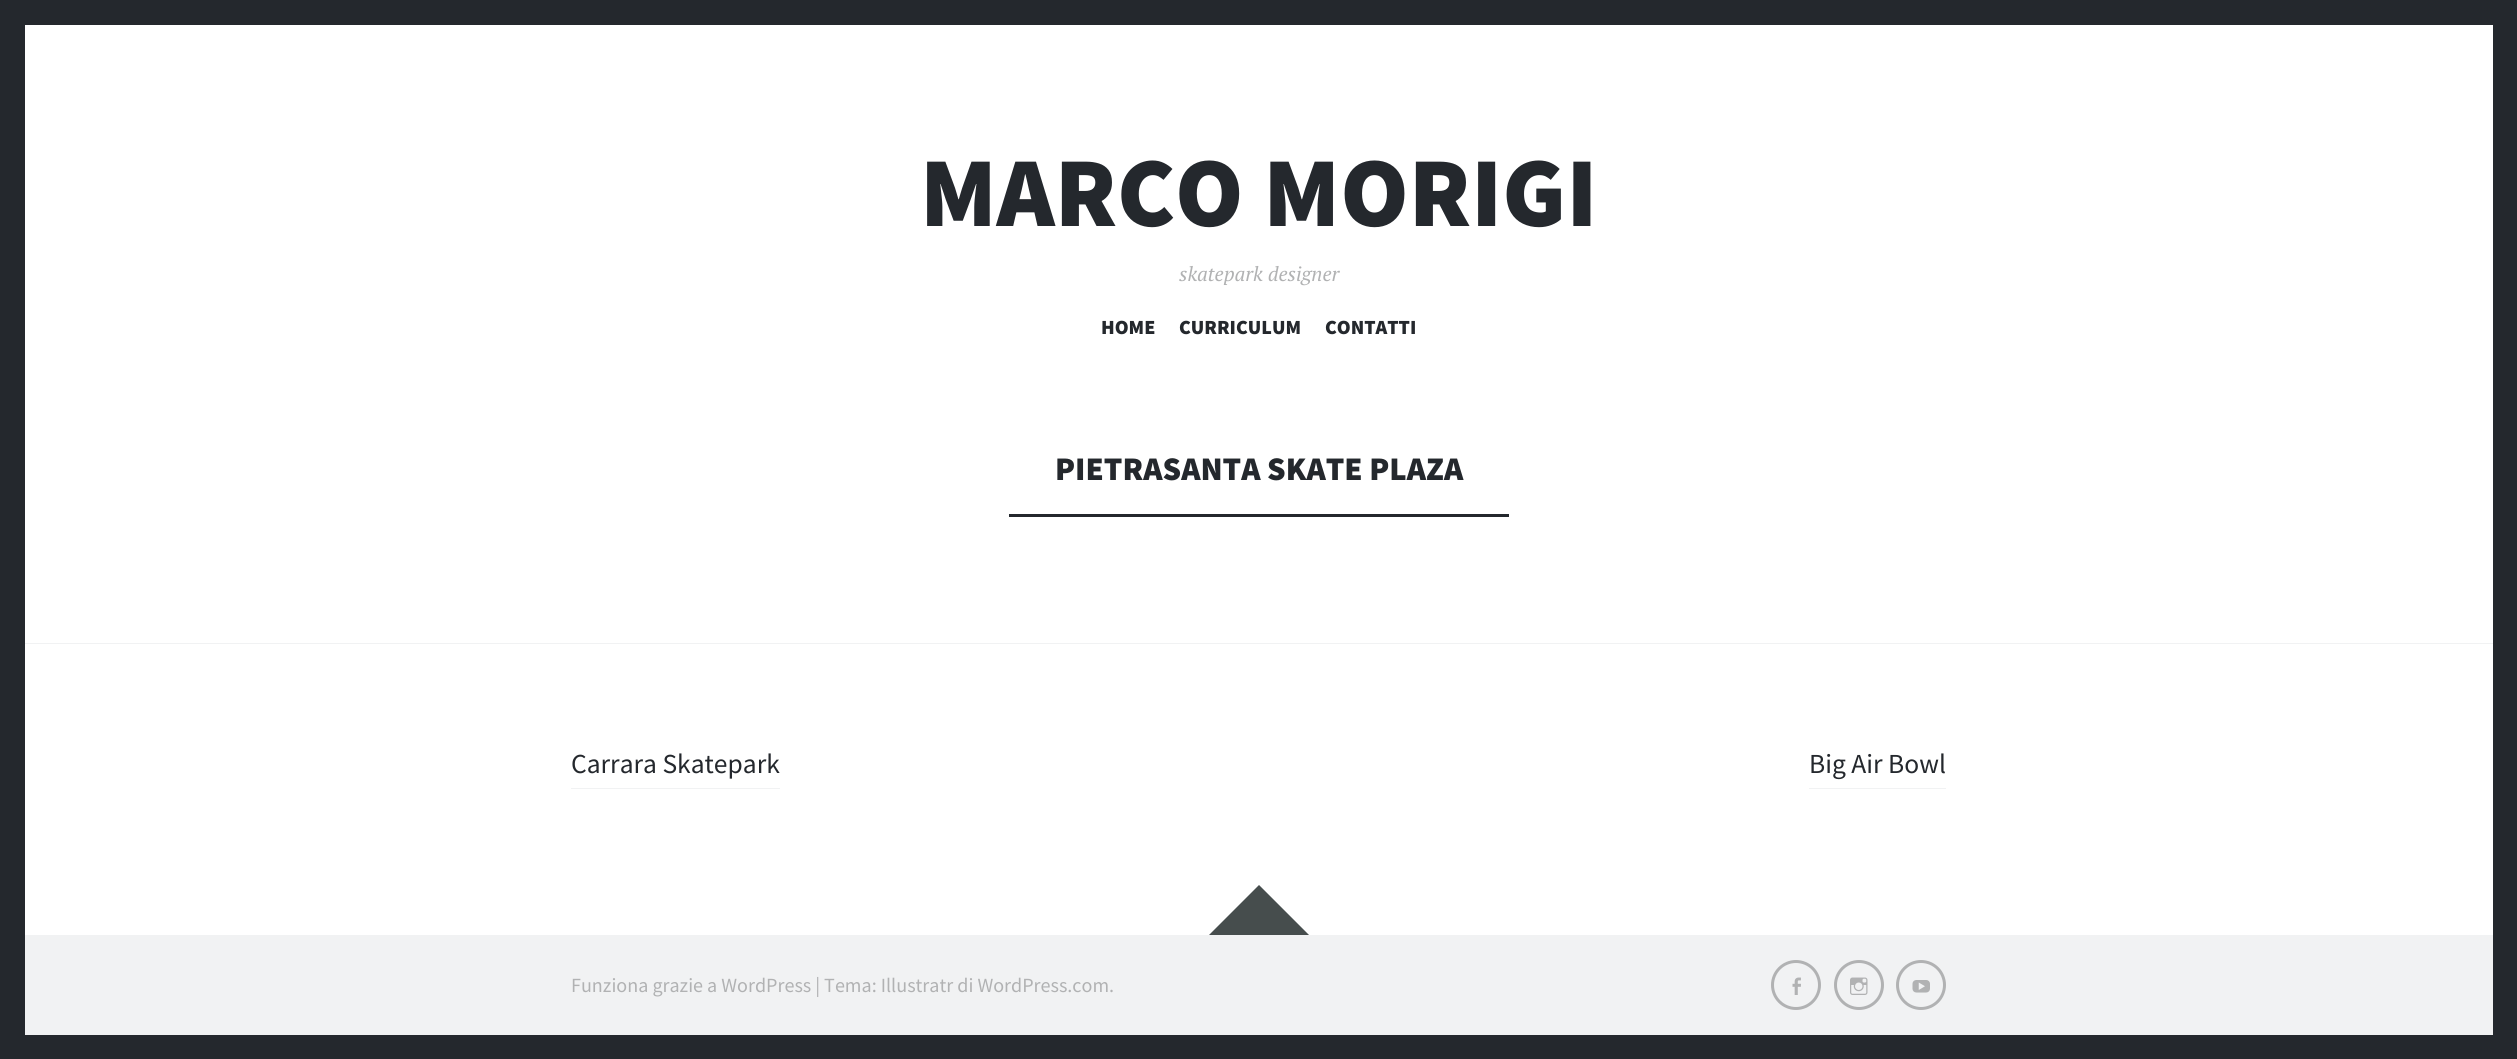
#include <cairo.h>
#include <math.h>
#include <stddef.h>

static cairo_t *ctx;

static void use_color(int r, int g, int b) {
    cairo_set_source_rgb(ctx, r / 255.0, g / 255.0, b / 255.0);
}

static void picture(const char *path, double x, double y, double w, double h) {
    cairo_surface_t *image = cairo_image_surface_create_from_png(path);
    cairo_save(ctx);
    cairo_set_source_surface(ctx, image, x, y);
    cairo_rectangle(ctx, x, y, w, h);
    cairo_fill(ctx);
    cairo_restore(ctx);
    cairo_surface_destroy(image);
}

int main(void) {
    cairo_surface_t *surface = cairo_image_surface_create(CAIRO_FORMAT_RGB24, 2517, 1059);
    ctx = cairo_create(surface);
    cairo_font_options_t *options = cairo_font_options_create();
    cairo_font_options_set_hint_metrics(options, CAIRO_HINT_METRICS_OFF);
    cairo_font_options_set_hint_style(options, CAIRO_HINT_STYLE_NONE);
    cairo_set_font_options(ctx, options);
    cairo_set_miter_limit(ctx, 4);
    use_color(36, 40, 45);
    cairo_paint(ctx);
    use_color(255, 255, 255);
    cairo_rectangle(ctx, 25, 25, 2468, 910);
    cairo_fill(ctx);
    cairo_select_font_face(ctx, "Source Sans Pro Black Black", CAIRO_FONT_SLANT_NORMAL, CAIRO_FONT_WEIGHT_NORMAL);
    cairo_set_font_size(ctx, 99);
    use_color(36, 40, 45);
    cairo_move_to(ctx, 920, 226);
    cairo_show_text(ctx, "MARCO MORIGI");
    cairo_select_font_face(ctx, "PT Serif", CAIRO_FONT_SLANT_ITALIC, CAIRO_FONT_WEIGHT_NORMAL);
    cairo_set_font_size(ctx, 20.1);
    use_color(177, 178, 179);
    cairo_move_to(ctx, 1179, 281);
    cairo_show_text(ctx, "skatepark designer");
    cairo_select_font_face(ctx, "Source Sans Pro Black Black", CAIRO_FONT_SLANT_NORMAL, CAIRO_FONT_WEIGHT_NORMAL);
    use_color(36, 40, 45);
    cairo_move_to(ctx, 1101, 334);
    cairo_show_text(ctx, "HOME");
    cairo_move_to(ctx, 1179, 334);
    cairo_show_text(ctx, "CURRICULUM");
    cairo_move_to(ctx, 1325, 334);
    cairo_show_text(ctx, "CONTATTI");
    cairo_set_font_size(ctx, 33);
    cairo_move_to(ctx, 1055, 480);
    cairo_show_text(ctx, "PIETRASANTA SKATE PLAZA");
    cairo_rectangle(ctx, 1009, 514, 500, 3);
    cairo_fill(ctx);
    use_color(241, 242, 243);
    cairo_rectangle(ctx, 25, 643, 2468, 1);
    cairo_fill(ctx);
    cairo_select_font_face(ctx, "Source Sans Pro", CAIRO_FONT_SLANT_NORMAL, CAIRO_FONT_WEIGHT_NORMAL);
    cairo_set_font_size(ctx, 27.5);
    use_color(36, 40, 45);
    cairo_move_to(ctx, 571, 773);
    cairo_show_text(ctx, "Carrara Skatepark");
    use_color(241, 242, 243);
    cairo_rectangle(ctx, 571, 788, 209, 1);
    cairo_fill(ctx);
    use_color(36, 40, 45);
    cairo_move_to(ctx, 1809, 773);
    cairo_show_text(ctx, "Big Air Bowl");
    use_color(241, 242, 243);
    cairo_rectangle(ctx, 1809, 788, 137, 1);
    cairo_fill(ctx);
    use_color(70, 77, 77);
    cairo_new_path(ctx);
    cairo_move_to(ctx, 1309, 935);
    cairo_line_to(ctx, 1209, 935);
    cairo_line_to(ctx, 1259, 885);
    cairo_close_path(ctx);
    cairo_fill(ctx);
    use_color(241, 242, 243);
    cairo_rectangle(ctx, 25, 935, 2468, 100);
    cairo_fill(ctx);
    cairo_set_font_size(ctx, 20.1);
    use_color(177, 178, 179);
    cairo_move_to(ctx, 571, 992);
    cairo_show_text(ctx, "Funziona grazie a WordPress | Tema: Illustratr di WordPress.com.");
    cairo_new_path(ctx);
    cairo_arc(ctx, 1796, 985, 23.5, 0, 2 * M_PI);
    cairo_set_line_width(ctx, 3);
    cairo_stroke(ctx);
    picture("img1.png", 1792, 977, 9, 18);
    cairo_arc(ctx, 1859, 985, 23.5, 0, 2 * M_PI);
    cairo_stroke(ctx);
    picture("img2.png", 1850, 977, 18, 18);
    cairo_arc(ctx, 1921, 985, 23.5, 0, 2 * M_PI);
    cairo_stroke(ctx);
    picture("img3.png", 1912, 980, 18, 13);
    cairo_surface_write_to_png(surface, "result.png");
    cairo_font_options_destroy(options);
    cairo_destroy(ctx);
    cairo_surface_destroy(surface);
    return 0;
}
